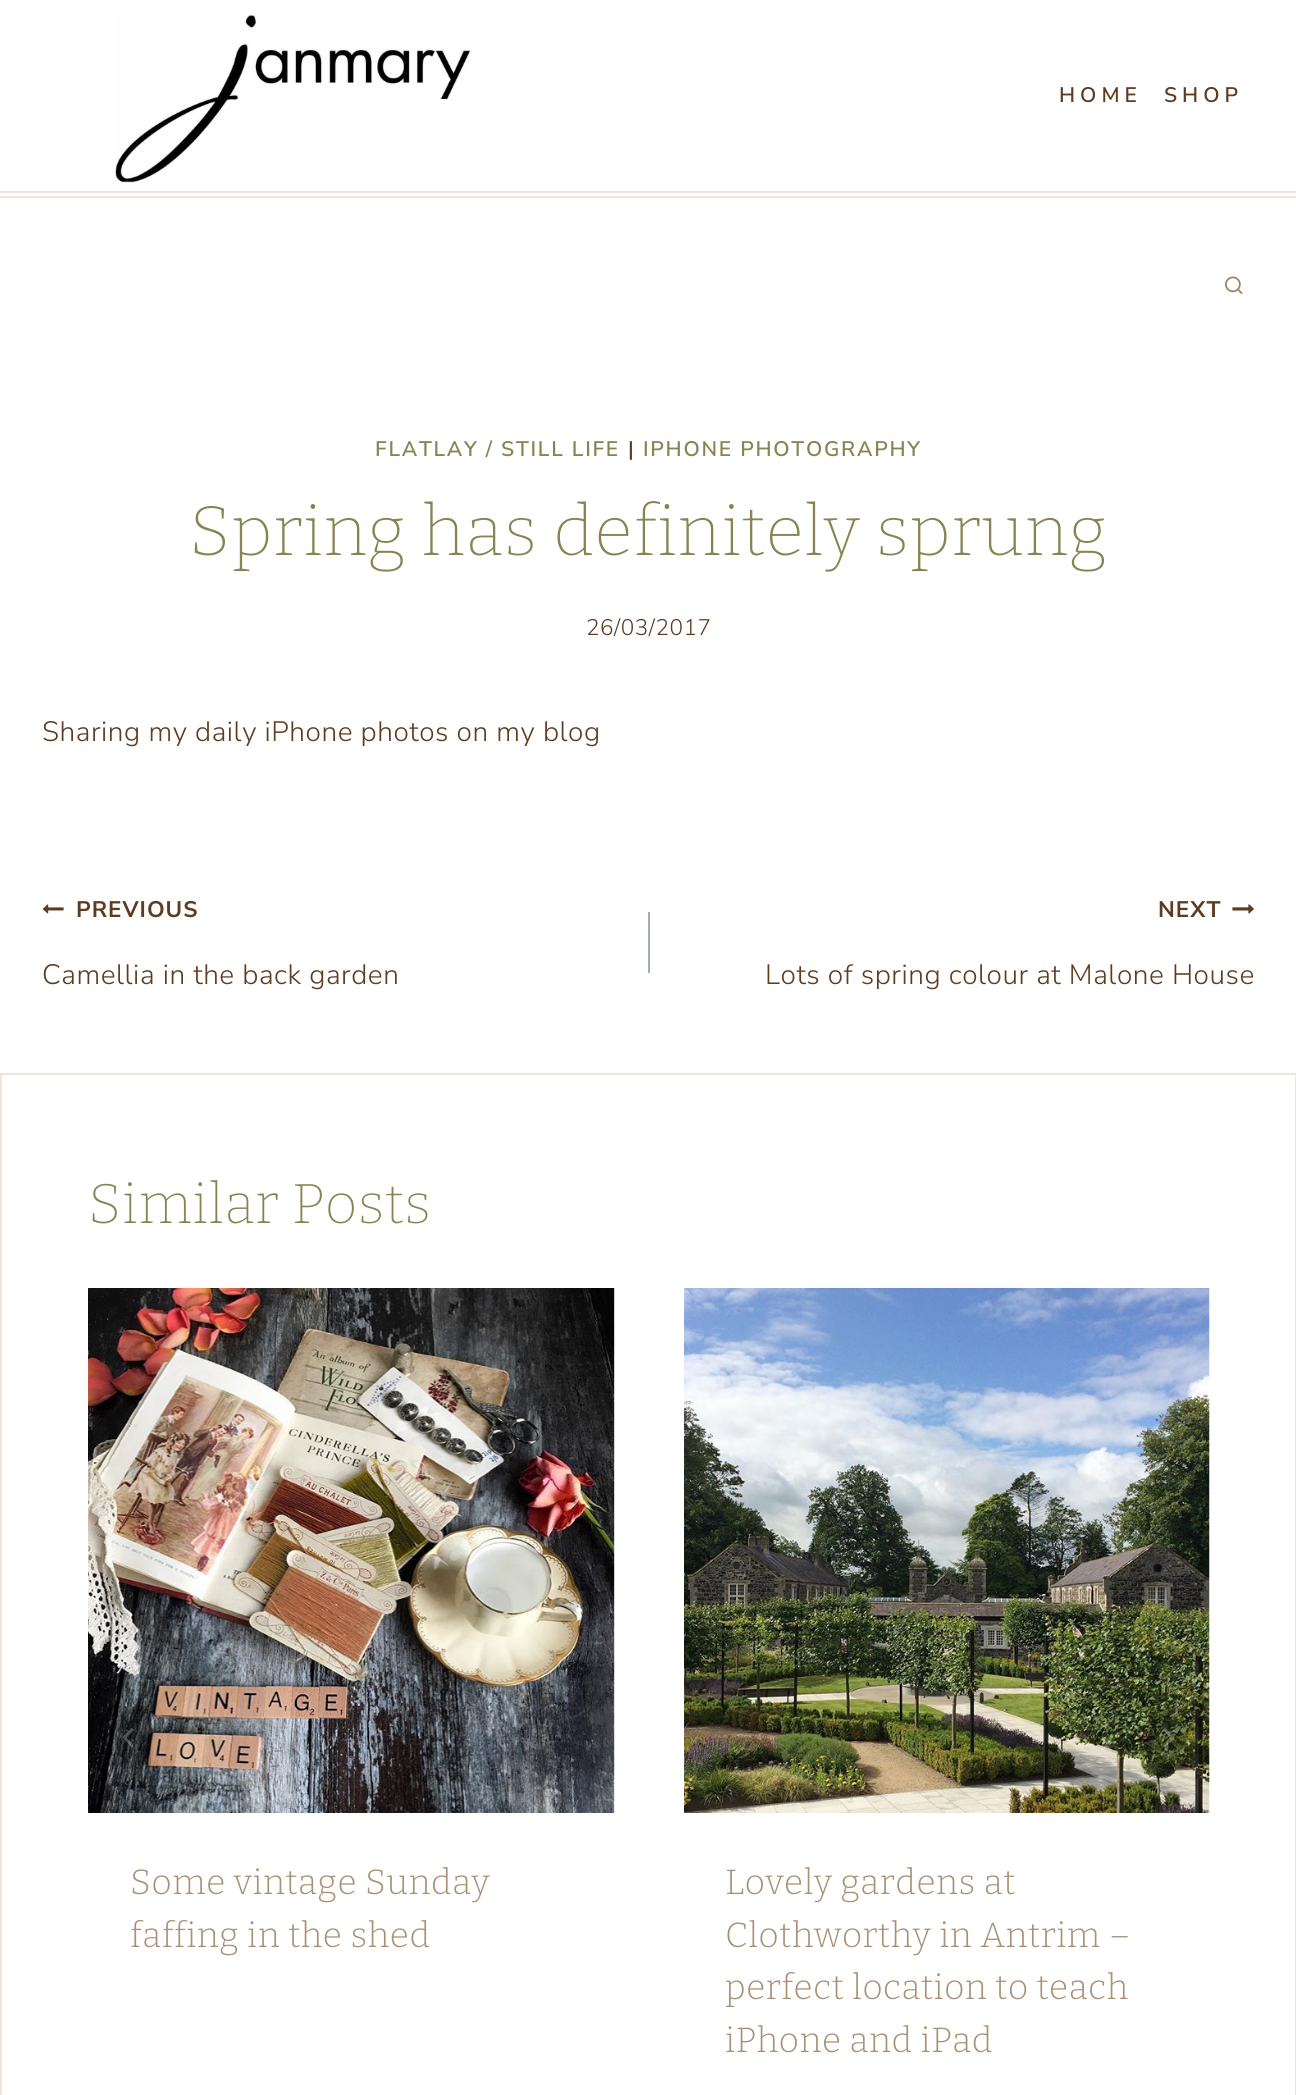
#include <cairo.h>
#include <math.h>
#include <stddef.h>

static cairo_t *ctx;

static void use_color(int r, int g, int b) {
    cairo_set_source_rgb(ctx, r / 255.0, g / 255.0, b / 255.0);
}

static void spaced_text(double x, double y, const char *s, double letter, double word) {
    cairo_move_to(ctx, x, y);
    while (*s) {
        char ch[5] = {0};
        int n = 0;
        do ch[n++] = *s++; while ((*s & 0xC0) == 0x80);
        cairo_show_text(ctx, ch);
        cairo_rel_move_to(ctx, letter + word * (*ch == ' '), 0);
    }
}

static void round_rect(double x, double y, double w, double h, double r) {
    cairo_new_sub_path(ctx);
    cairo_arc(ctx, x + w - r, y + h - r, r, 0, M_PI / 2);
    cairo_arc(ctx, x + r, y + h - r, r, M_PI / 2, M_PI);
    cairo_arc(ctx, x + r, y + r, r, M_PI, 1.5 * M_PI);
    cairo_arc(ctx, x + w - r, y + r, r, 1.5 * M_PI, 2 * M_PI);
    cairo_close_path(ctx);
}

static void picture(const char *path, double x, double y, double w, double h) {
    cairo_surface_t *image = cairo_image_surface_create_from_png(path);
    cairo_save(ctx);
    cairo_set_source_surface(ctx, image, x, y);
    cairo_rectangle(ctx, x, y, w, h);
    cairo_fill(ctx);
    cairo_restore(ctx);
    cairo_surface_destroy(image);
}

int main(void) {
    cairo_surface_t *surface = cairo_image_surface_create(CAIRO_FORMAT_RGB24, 1296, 2095);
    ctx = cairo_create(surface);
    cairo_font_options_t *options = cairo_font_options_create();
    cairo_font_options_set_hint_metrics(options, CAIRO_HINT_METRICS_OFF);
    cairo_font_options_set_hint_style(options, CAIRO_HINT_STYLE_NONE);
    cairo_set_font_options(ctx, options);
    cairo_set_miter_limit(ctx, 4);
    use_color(255, 255, 255);
    cairo_paint(ctx);
    use_color(242, 225, 220);
    cairo_rectangle(ctx, 0, 191, 1296, 2);
    cairo_fill(ctx);
    cairo_rectangle(ctx, 0, 196, 1296, 2);
    cairo_fill(ctx);
    picture("img1.png", 115, 14, 356, 169);
    cairo_select_font_face(ctx, "Nunito Sans SemiBold", CAIRO_FONT_SLANT_NORMAL, CAIRO_FONT_WEIGHT_NORMAL);
    cairo_set_font_size(ctx, 21);
    use_color(94, 60, 33);
    spaced_text(1059, 102, "HOME", 5, 0);
    spaced_text(1164, 102, "SHOP", 5, 0);
    picture("img2.png", 1225, 276, 18, 18);
    use_color(134, 132, 81);
    spaced_text(375, 456, "FLATLAY / STILL LIFE", 1.75, 0);
    use_color(94, 60, 33);
    spaced_text(628, 456, "|", 1.75, 0);
    use_color(134, 132, 81);
    spaced_text(643, 456, "IPHONE PHOTOGRAPHY", 1.75, 0);
    cairo_select_font_face(ctx, "Bitter ExtraLight", CAIRO_FONT_SLANT_NORMAL, CAIRO_FONT_WEIGHT_NORMAL);
    cairo_set_font_size(ctx, 70);
    spaced_text(189, 555, "Spring has definitely sprung", 0.55, 0);
    cairo_select_font_face(ctx, "Nunito Sans Light", CAIRO_FONT_SLANT_NORMAL, CAIRO_FONT_WEIGHT_NORMAL);
    cairo_set_font_size(ctx, 22.5);
    use_color(94, 60, 33);
    spaced_text(586, 635, "26/03/2017", 0.55, 0);
    cairo_set_font_size(ctx, 28);
    spaced_text(42, 741, "Sharing my daily iPhone photos on my blog", 0.55, 0);
    picture("img3.png", 42, 904, 22, 10);
    cairo_select_font_face(ctx, "Nunito Sans", CAIRO_FONT_SLANT_NORMAL, CAIRO_FONT_WEIGHT_BOLD);
    cairo_set_font_size(ctx, 22.5);
    spaced_text(76, 917, "PREVIOUS", 1, 0);
    cairo_select_font_face(ctx, "Nunito Sans Light", CAIRO_FONT_SLANT_NORMAL, CAIRO_FONT_WEIGHT_NORMAL);
    cairo_set_font_size(ctx, 28);
    spaced_text(42, 984, "Camellia in the back garden", 0.55, 0);
    use_color(160, 174, 192);
    cairo_rectangle(ctx, 648, 912, 2, 61);
    cairo_fill(ctx);
    cairo_select_font_face(ctx, "Nunito Sans", CAIRO_FONT_SLANT_NORMAL, CAIRO_FONT_WEIGHT_BOLD);
    cairo_set_font_size(ctx, 22.5);
    use_color(94, 60, 33);
    spaced_text(1158, 917, "NEXT", 1, 0);
    picture("img4.png", 1232, 904, 22, 10);
    cairo_select_font_face(ctx, "Nunito Sans Light", CAIRO_FONT_SLANT_NORMAL, CAIRO_FONT_WEIGHT_NORMAL);
    cairo_set_font_size(ctx, 28);
    spaced_text(765, 984, "Lots of spring colour at Malone House", 0.55, 0);
    cairo_rectangle(ctx, 1, 1074, 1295, 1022);
    use_color(242, 225, 220);
    cairo_stroke(ctx);
    cairo_select_font_face(ctx, "Bitter ExtraLight", CAIRO_FONT_SLANT_NORMAL, CAIRO_FONT_WEIGHT_NORMAL);
    cairo_set_font_size(ctx, 56);
    use_color(134, 132, 81);
    spaced_text(88, 1223, "Similar Posts", 0.55, 0);
    picture("img5.png", 88, 1288, 527, 525);
    cairo_set_source_rgba(ctx, 0, 0, 0, 0.2);
    round_rect(109, 1706, 42, 63, 5);
    cairo_fill(ctx);
    cairo_set_source_rgba(ctx, 1, 1, 1, 0.25);
    cairo_new_path(ctx);
    cairo_move_to(ctx, 132, 1727.5);
    cairo_line_to(ctx, 134, 1730);
    cairo_line_to(ctx, 126.5, 1737.5);
    cairo_line_to(ctx, 134, 1745.5);
    cairo_line_to(ctx, 132, 1747.5);
    cairo_line_to(ctx, 122, 1737.5);
    cairo_close_path(ctx);
    cairo_fill(ctx);
    picture("img6.png", 684, 1288, 526, 525);
    cairo_set_source_rgba(ctx, 0, 0, 0, 0.2);
    round_rect(1146, 1706, 42, 63, 5);
    cairo_fill(ctx);
    cairo_set_source_rgba(ctx, 1, 1, 1, 0.25);
    cairo_new_path(ctx);
    cairo_move_to(ctx, 1165, 1727.5);
    cairo_line_to(ctx, 1162.5, 1730);
    cairo_line_to(ctx, 1170, 1737.5);
    cairo_line_to(ctx, 1162.5, 1745.5);
    cairo_line_to(ctx, 1165, 1747.5);
    cairo_line_to(ctx, 1175, 1737.5);
    cairo_close_path(ctx);
    cairo_fill(ctx);
    cairo_select_font_face(ctx, "Bitter Light", CAIRO_FONT_SLANT_NORMAL, CAIRO_FONT_WEIGHT_NORMAL);
    cairo_set_font_size(ctx, 35);
    use_color(169, 145, 118);
    spaced_text(130, 1894, "Some vintage Sunday", 0.55, 0);
    spaced_text(130, 1947, "faffing in the shed", 0.55, 0);
    spaced_text(725, 1894, "Lovely gardens at", 0.55, 0);
    spaced_text(725, 1947, "Clothworthy in Antrim –", 0.55, 0);
    spaced_text(725, 1999, "perfect location to teach", 0.55, 0);
    spaced_text(725, 2052, "iPhone and iPad", 0.55, 0);
    cairo_surface_write_to_png(surface, "result.png");
    cairo_font_options_destroy(options);
    cairo_destroy(ctx);
    cairo_surface_destroy(surface);
    return 0;
}
